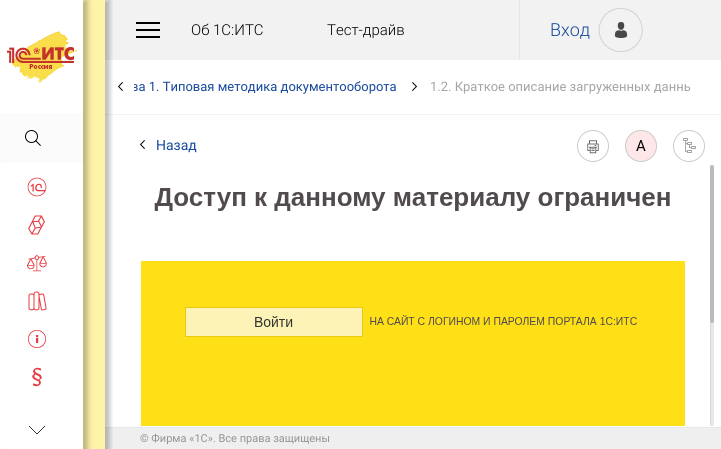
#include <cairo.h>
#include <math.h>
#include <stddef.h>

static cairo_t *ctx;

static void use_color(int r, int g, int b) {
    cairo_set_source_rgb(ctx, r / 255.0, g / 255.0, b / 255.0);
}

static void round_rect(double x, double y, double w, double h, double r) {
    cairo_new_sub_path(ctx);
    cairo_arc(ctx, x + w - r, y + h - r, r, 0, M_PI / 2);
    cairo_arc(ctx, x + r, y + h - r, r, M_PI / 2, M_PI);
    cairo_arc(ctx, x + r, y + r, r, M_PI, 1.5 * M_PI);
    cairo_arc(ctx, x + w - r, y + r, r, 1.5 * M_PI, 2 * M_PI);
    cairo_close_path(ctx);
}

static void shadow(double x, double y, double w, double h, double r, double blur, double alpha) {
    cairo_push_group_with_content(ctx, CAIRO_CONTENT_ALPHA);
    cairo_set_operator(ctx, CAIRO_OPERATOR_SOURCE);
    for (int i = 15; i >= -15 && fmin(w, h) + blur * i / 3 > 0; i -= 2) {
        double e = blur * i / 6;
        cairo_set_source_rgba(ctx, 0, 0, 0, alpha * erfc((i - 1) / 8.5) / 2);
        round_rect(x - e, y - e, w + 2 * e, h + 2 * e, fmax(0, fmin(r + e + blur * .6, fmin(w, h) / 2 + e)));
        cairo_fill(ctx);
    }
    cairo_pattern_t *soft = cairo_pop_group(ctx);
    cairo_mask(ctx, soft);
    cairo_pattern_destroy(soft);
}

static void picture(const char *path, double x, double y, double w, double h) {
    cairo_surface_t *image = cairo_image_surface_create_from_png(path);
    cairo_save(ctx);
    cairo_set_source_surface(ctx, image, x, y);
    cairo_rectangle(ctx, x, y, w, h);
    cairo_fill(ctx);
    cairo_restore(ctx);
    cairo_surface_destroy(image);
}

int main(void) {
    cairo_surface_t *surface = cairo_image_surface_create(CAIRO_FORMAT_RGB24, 721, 449);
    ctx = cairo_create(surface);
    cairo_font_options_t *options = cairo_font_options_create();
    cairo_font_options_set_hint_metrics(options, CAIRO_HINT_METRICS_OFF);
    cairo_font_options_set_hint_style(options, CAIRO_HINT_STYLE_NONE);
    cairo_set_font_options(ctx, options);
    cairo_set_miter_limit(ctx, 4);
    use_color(255, 255, 255);
    cairo_paint(ctx);
    use_color(255, 243, 169);
    cairo_rectangle(ctx, 83, 0, 22, 449);
    cairo_fill(ctx);
    use_color(0, 0, 0);
    shadow(5, 0, 83, 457, 0, 2.5, 0.25);
    use_color(255, 255, 255);
    cairo_rectangle(ctx, 1, 0, 82, 449);
    cairo_fill(ctx);
    picture("img1.png", 27, 177, 20, 20);
    picture("img2.png", 28, 215, 17, 20);
    picture("img3.png", 27, 254, 20, 18);
    picture("img4.png", 28, 291, 19, 20);
    picture("img5.png", 28, 330, 18, 18);
    picture("img6.png", 32, 367, 10, 20);
    use_color(242, 242, 242);
    cairo_rectangle(ctx, 105, 0, 616, 60);
    cairo_fill(ctx);
    cairo_rectangle(ctx, 105, 114, 616, 1);
    cairo_fill(ctx);
    picture("img12.png", 118, 82, 5, 9);
    use_color(239, 239, 239);
    cairo_rectangle(ctx, 105, 428, 616, 21);
    cairo_fill(ctx);
    use_color(232, 232, 232);
    cairo_rectangle(ctx, 105, 427, 616, 1);
    cairo_fill(ctx);
    cairo_save(ctx);
    cairo_rectangle(ctx, 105, 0, 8, 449);
    cairo_clip(ctx);
    use_color(0, 0, 0);
    shadow(92, 0, 18, 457, 0, 2.5, 0.25);
    cairo_restore(ctx);
    picture("img7.png", 7, 31, 71, 52);
    use_color(251, 251, 251);
    cairo_rectangle(ctx, 0, 113, 83, 50);
    cairo_fill(ctx);
    picture("img8.png", 25, 130, 16, 16);
    picture("img9.png", 29, 426, 16, 8);
    picture("img10.png", 136, 22, 24, 16);
    cairo_select_font_face(ctx, "Roboto Light", CAIRO_FONT_SLANT_NORMAL, CAIRO_FONT_WEIGHT_NORMAL);
    cairo_set_font_size(ctx, 15);
    use_color(0, 0, 0);
    cairo_move_to(ctx, 191, 35);
    cairo_show_text(ctx, "Об 1С:ИТС");
    cairo_move_to(ctx, 327, 35);
    cairo_show_text(ctx, "Тест-драйв");
    use_color(230, 230, 230);
    cairo_rectangle(ctx, 519, 0, 1, 60);
    cairo_fill(ctx);
    cairo_set_font_size(ctx, 18);
    use_color(22, 72, 155);
    cairo_move_to(ctx, 550, 36);
    cairo_show_text(ctx, "Вход");
    picture("img11.png", 598, 8, 45, 44);
    cairo_save(ctx);
    cairo_rectangle(ctx, 134, 60, 557, 53);
    cairo_clip(ctx);
    cairo_select_font_face(ctx, "Roboto", CAIRO_FONT_SLANT_NORMAL, CAIRO_FONT_WEIGHT_NORMAL);
    cairo_set_font_size(ctx, 13);
    cairo_move_to(ctx, 131, 91);
    cairo_show_text(ctx, "ва 1. Типовая методика документооборота");
    cairo_restore(ctx);
    picture("img13.png", 412, 82, 5, 9);
    cairo_save(ctx);
    cairo_rectangle(ctx, 134, 60, 557, 53);
    cairo_clip(ctx);
    cairo_select_font_face(ctx, "Roboto", CAIRO_FONT_SLANT_NORMAL, CAIRO_FONT_WEIGHT_NORMAL);
    cairo_set_font_size(ctx, 13);
    use_color(164, 164, 164);
    cairo_move_to(ctx, 430, 91);
    cairo_show_text(ctx, "1.2. Краткое описание загруженных данны");
    cairo_restore(ctx);
    picture("img12.png", 140, 140, 5, 9);
    cairo_select_font_face(ctx, "Roboto", CAIRO_FONT_SLANT_NORMAL, CAIRO_FONT_WEIGHT_NORMAL);
    cairo_set_font_size(ctx, 14);
    cairo_move_to(ctx, 156, 150);
    cairo_show_text(ctx, "Назад");
    picture("img14.png", 587, 140, 12, 14);
    cairo_arc(ctx, 593, 146, 15.5, 0, 2 * M_PI);
    use_color(204, 204, 204);
    cairo_set_line_width(ctx, 1);
    cairo_stroke(ctx);
    use_color(253, 231, 232);
    cairo_arc(ctx, 641, 146, 16, 0, 2 * M_PI);
    cairo_fill(ctx);
    picture("img15.png", 636, 140, 10, 11);
    cairo_arc(ctx, 641, 146, 15.5, 0, 2 * M_PI);
    use_color(204, 204, 204);
    cairo_stroke(ctx);
    picture("img16.png", 683, 138, 13, 15);
    cairo_arc(ctx, 689, 146, 15.5, 0, 2 * M_PI);
    cairo_stroke(ctx);
    picture("img17.png", 141, 188, 544, 238);
    use_color(231, 231, 231);
    round_rect(710, 165, 4, 261, 2);
    cairo_fill(ctx);
    use_color(216, 216, 216);
    cairo_new_path(ctx);
    cairo_move_to(ctx, 712, 165);
    cairo_curve_to(ctx, 711, 165, 710, 166, 710, 167);
    cairo_line_to(ctx, 710, 425);
    cairo_curve_to(ctx, 711, 426, 712, 426, 713, 426);
    cairo_curve_to(ctx, 712, 426, 711, 425, 711, 424);
    cairo_line_to(ctx, 711, 167);
    cairo_curve_to(ctx, 711, 166, 712, 165, 713, 165);
    cairo_close_path(ctx);
    cairo_fill(ctx);
    use_color(187, 187, 187);
    round_rect(710, 165, 4, 158, 2);
    cairo_fill(ctx);
    cairo_set_font_size(ctx, 11);
    use_color(147, 147, 147);
    cairo_move_to(ctx, 140, 442);
    cairo_show_text(ctx, "© Фирма «1С». Все права защищены");
    cairo_surface_write_to_png(surface, "result.png");
    cairo_font_options_destroy(options);
    cairo_destroy(ctx);
    cairo_surface_destroy(surface);
    return 0;
}
